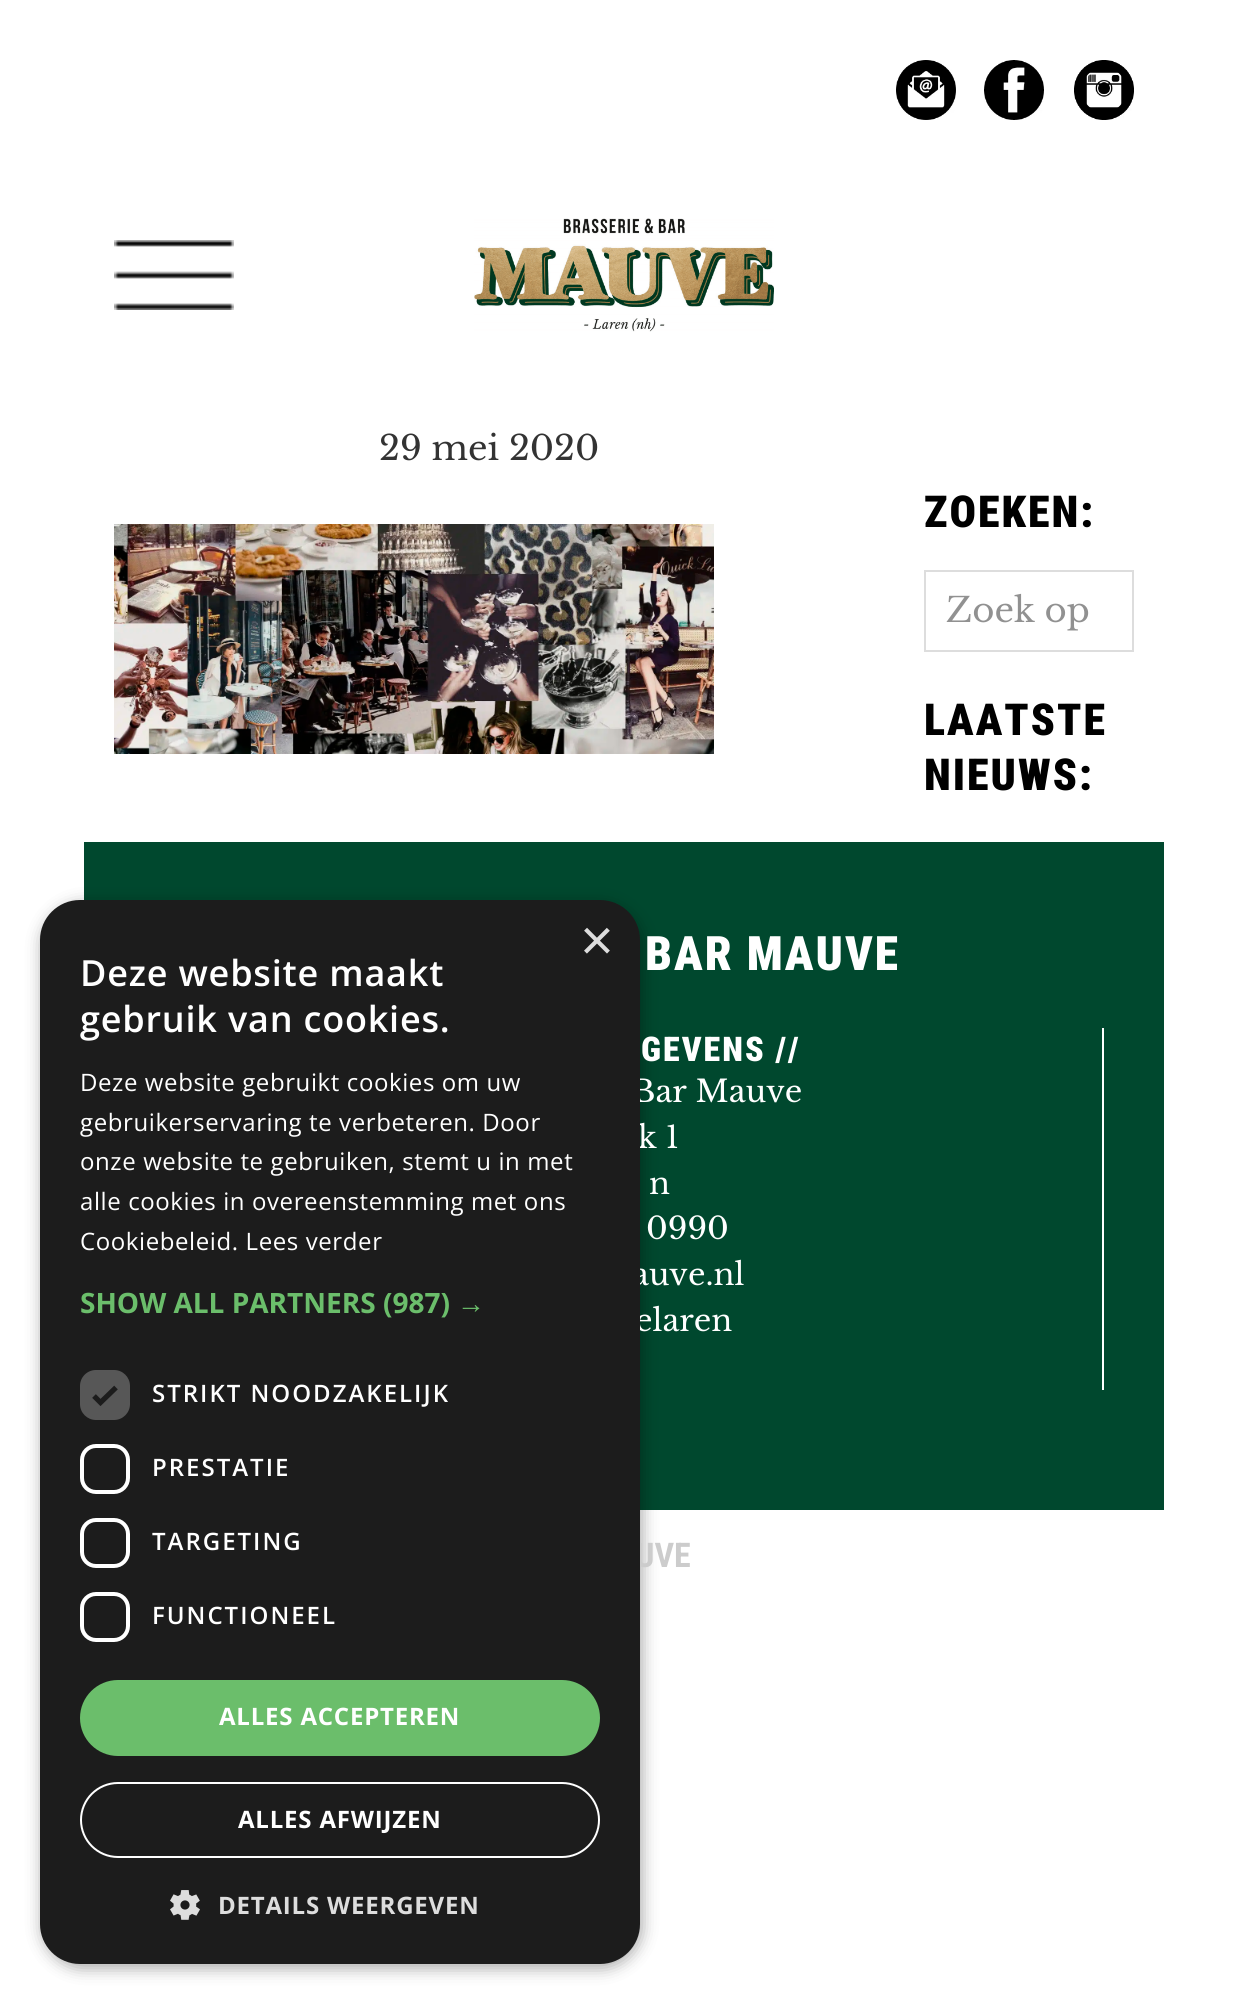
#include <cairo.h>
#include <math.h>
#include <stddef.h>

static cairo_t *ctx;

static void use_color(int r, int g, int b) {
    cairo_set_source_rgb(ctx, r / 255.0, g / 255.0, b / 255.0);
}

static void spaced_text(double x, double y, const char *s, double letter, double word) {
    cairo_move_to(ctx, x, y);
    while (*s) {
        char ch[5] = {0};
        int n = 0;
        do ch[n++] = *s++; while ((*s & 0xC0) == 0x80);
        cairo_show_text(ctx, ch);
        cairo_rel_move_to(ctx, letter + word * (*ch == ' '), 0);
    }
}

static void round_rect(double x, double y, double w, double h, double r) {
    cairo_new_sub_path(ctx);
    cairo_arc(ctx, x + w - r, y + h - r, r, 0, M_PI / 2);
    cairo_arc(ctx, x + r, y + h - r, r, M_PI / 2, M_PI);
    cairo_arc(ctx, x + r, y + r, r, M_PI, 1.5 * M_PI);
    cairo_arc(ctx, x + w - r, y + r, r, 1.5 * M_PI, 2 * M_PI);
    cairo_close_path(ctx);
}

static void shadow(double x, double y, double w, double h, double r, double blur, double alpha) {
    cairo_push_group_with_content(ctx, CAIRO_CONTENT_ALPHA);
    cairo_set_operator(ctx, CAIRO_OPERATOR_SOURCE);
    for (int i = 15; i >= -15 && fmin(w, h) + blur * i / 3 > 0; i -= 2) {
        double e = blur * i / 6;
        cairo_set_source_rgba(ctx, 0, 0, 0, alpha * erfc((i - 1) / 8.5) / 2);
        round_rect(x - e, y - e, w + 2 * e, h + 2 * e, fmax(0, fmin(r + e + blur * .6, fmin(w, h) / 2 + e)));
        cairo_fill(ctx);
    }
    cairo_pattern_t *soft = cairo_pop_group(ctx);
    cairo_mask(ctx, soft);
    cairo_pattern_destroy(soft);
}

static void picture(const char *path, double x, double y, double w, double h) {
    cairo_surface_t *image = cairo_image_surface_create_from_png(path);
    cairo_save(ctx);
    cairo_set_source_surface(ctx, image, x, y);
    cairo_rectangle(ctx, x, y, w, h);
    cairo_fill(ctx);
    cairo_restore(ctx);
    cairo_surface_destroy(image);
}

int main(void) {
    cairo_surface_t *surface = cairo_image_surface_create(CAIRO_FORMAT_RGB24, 1247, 2003);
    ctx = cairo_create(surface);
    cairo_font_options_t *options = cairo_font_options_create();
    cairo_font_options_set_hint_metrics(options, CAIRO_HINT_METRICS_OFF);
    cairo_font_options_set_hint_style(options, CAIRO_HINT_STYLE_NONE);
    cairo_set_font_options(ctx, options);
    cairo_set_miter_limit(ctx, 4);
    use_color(255, 255, 255);
    cairo_paint(ctx);
    use_color(0, 72, 46);
    cairo_rectangle(ctx, 84, 842, 1080, 668);
    cairo_fill(ctx);
    use_color(0, 0, 0);
    shadow(42, 904, 600, 1064, 40, 8, 0.35);
    cairo_select_font_face(ctx, "Libre Baskerville", CAIRO_FONT_SLANT_NORMAL, CAIRO_FONT_WEIGHT_NORMAL);
    cairo_set_font_size(ctx, 30.5);
    use_color(255, 255, 255);
    cairo_move_to(ctx, 632, 1102);
    cairo_show_text(ctx, "Bar Mauve");
    cairo_move_to(ctx, 638, 1148);
    cairo_show_text(ctx, "k 1");
    cairo_move_to(ctx, 632, 1285);
    cairo_show_text(ctx, "auve.nl");
    cairo_move_to(ctx, 635, 1331);
    cairo_show_text(ctx, "elaren");
    cairo_select_font_face(ctx, "Roboto Condensed", CAIRO_FONT_SLANT_NORMAL, CAIRO_FONT_WEIGHT_BOLD);
    cairo_set_font_size(ctx, 34);
    use_color(204, 204, 204);
    cairo_move_to(ctx, 635, 1567);
    cairo_show_text(ctx, "UVE");
    use_color(28, 28, 28);
    round_rect(40, 900, 600, 1064, 40);
    cairo_fill(ctx);
    cairo_select_font_face(ctx, "Liberation Sans", CAIRO_FONT_SLANT_NORMAL, CAIRO_FONT_WEIGHT_NORMAL);
    cairo_set_font_size(ctx, 58);
    use_color(221, 221, 221);
    cairo_move_to(ctx, 580, 960);
    cairo_show_text(ctx, "×");
    cairo_select_font_face(ctx, "Open Sans SemiBold", CAIRO_FONT_SLANT_NORMAL, CAIRO_FONT_WEIGHT_NORMAL);
    cairo_set_font_size(ctx, 36);
    use_color(255, 255, 255);
    spaced_text(80, 986, "Deze website maakt", 0.8, 0);
    spaced_text(80, 1032, "gebruik van cookies.", 0.8, 0);
    cairo_select_font_face(ctx, "Open Sans", CAIRO_FONT_SLANT_NORMAL, CAIRO_FONT_WEIGHT_NORMAL);
    cairo_set_font_size(ctx, 24);
    spaced_text(80, 1091, "Deze website gebruikt cookies om uw", 0.6, 0);
    spaced_text(80, 1131, "gebruikerservaring te verbeteren. Door", 0.6, 0);
    spaced_text(80, 1170, "onze website te gebruiken, stemt u in met", 0.6, 0);
    spaced_text(80, 1210, "alle cookies in overeenstemming met ons", 0.6, 0);
    spaced_text(80, 1250, "Cookiebeleid. Lees verder", 0.6, 0);
    cairo_select_font_face(ctx, "Open Sans", CAIRO_FONT_SLANT_NORMAL, CAIRO_FONT_WEIGHT_BOLD);
    cairo_set_font_size(ctx, 28);
    use_color(107, 190, 107);
    cairo_move_to(ctx, 80, 1313);
    cairo_show_text(ctx, "SHOW ALL PARTNERS (987)");
    cairo_select_font_face(ctx, "Liberation Sans", CAIRO_FONT_SLANT_NORMAL, CAIRO_FONT_WEIGHT_BOLD);
    cairo_move_to(ctx, 457, 1313);
    cairo_show_text(ctx, "→");
    use_color(87, 87, 87);
    round_rect(80, 1370, 50, 50, 16);
    cairo_fill(ctx);
    cairo_new_path(ctx);
    cairo_move_to(ctx, 94, 1396);
    cairo_line_to(ctx, 100.5, 1402.5);
    cairo_line_to(ctx, 116, 1387.5);
    use_color(28, 28, 28);
    cairo_set_line_width(ctx, 5.2);
    cairo_stroke(ctx);
    cairo_select_font_face(ctx, "Open Sans SemiBold", CAIRO_FONT_SLANT_NORMAL, CAIRO_FONT_WEIGHT_NORMAL);
    cairo_set_font_size(ctx, 24);
    use_color(255, 255, 255);
    spaced_text(152, 1402, "STRIKT NOODZAKELIJK", 2, 0);
    round_rect(82, 1446, 46, 46, 14);
    cairo_set_line_width(ctx, 4);
    cairo_stroke(ctx);
    spaced_text(152, 1476, "PRESTATIE", 2, 0);
    round_rect(82, 1520, 46, 46, 14);
    cairo_stroke(ctx);
    spaced_text(152, 1550, "TARGETING", 2, 0);
    round_rect(82, 1594, 46, 46, 14);
    cairo_stroke(ctx);
    spaced_text(152, 1624, "FUNCTIONEEL", 2, 0);
    use_color(107, 190, 107);
    round_rect(80, 1680, 520, 76, 38);
    cairo_fill(ctx);
    cairo_select_font_face(ctx, "Open Sans", CAIRO_FONT_SLANT_NORMAL, CAIRO_FONT_WEIGHT_BOLD);
    use_color(255, 255, 255);
    spaced_text(219, 1725, "ALLES ACCEPTEREN", 0.8, 0);
    round_rect(81, 1783, 518, 74, 37);
    cairo_set_line_width(ctx, 2);
    cairo_stroke(ctx);
    spaced_text(238, 1828, "ALLES AFWIJZEN", 0.8, 0);
    picture("img1.png", 170, 1890, 30, 30);
    use_color(221, 221, 221);
    spaced_text(218, 1914, "DETAILS WEERGEVEN", 0.8, 0);
    picture("img2.png", 896, 60, 60, 60);
    picture("img3.png", 984, 60, 60, 60);
    picture("img4.png", 1074, 60, 60, 60);
    picture("img5.png", 114, 240, 120, 70);
    picture("img6.png", 474, 218, 300, 114);
    cairo_select_font_face(ctx, "Libre Baskerville", CAIRO_FONT_SLANT_NORMAL, CAIRO_FONT_WEIGHT_NORMAL);
    cairo_set_font_size(ctx, 34);
    use_color(51, 51, 51);
    cairo_move_to(ctx, 379, 460);
    cairo_show_text(ctx, "29 mei 2020");
    picture("img7.png", 114, 524, 600, 230);
    cairo_select_font_face(ctx, "Roboto Condensed Black", CAIRO_FONT_SLANT_NORMAL, CAIRO_FONT_WEIGHT_NORMAL);
    cairo_set_font_size(ctx, 44);
    use_color(0, 0, 0);
    spaced_text(924, 527, "ZOEKEN:", 2, 0);
    cairo_rectangle(ctx, 925, 571, 208, 80);
    use_color(221, 221, 221);
    cairo_stroke(ctx);
    cairo_select_font_face(ctx, "Libre Baskerville", CAIRO_FONT_SLANT_NORMAL, CAIRO_FONT_WEIGHT_NORMAL);
    cairo_set_font_size(ctx, 34);
    use_color(145, 145, 145);
    cairo_move_to(ctx, 946, 622);
    cairo_show_text(ctx, "Zoek op");
    cairo_select_font_face(ctx, "Roboto Condensed Black", CAIRO_FONT_SLANT_NORMAL, CAIRO_FONT_WEIGHT_NORMAL);
    cairo_set_font_size(ctx, 44);
    use_color(0, 0, 0);
    spaced_text(924, 735, "LAATSTE", 2, 0);
    spaced_text(924, 790, "NIEUWS:", 2, 0);
    cairo_set_font_size(ctx, 47.5);
    use_color(255, 255, 255);
    spaced_text(645, 970, "BAR MAUVE", 2, 0);
    cairo_rectangle(ctx, 1102, 1028, 2, 362);
    cairo_fill(ctx);
    cairo_set_font_size(ctx, 34);
    spaced_text(641, 1061, "GEVENS //", 2, 0);
    cairo_select_font_face(ctx, "Libre Baskerville", CAIRO_FONT_SLANT_NORMAL, CAIRO_FONT_WEIGHT_NORMAL);
    cairo_set_font_size(ctx, 30.5);
    cairo_move_to(ctx, 649, 1194);
    cairo_show_text(ctx, "n");
    cairo_move_to(ctx, 646, 1239);
    cairo_show_text(ctx, "0990");
    cairo_surface_write_to_png(surface, "result.png");
    cairo_font_options_destroy(options);
    cairo_destroy(ctx);
    cairo_surface_destroy(surface);
    return 0;
}
